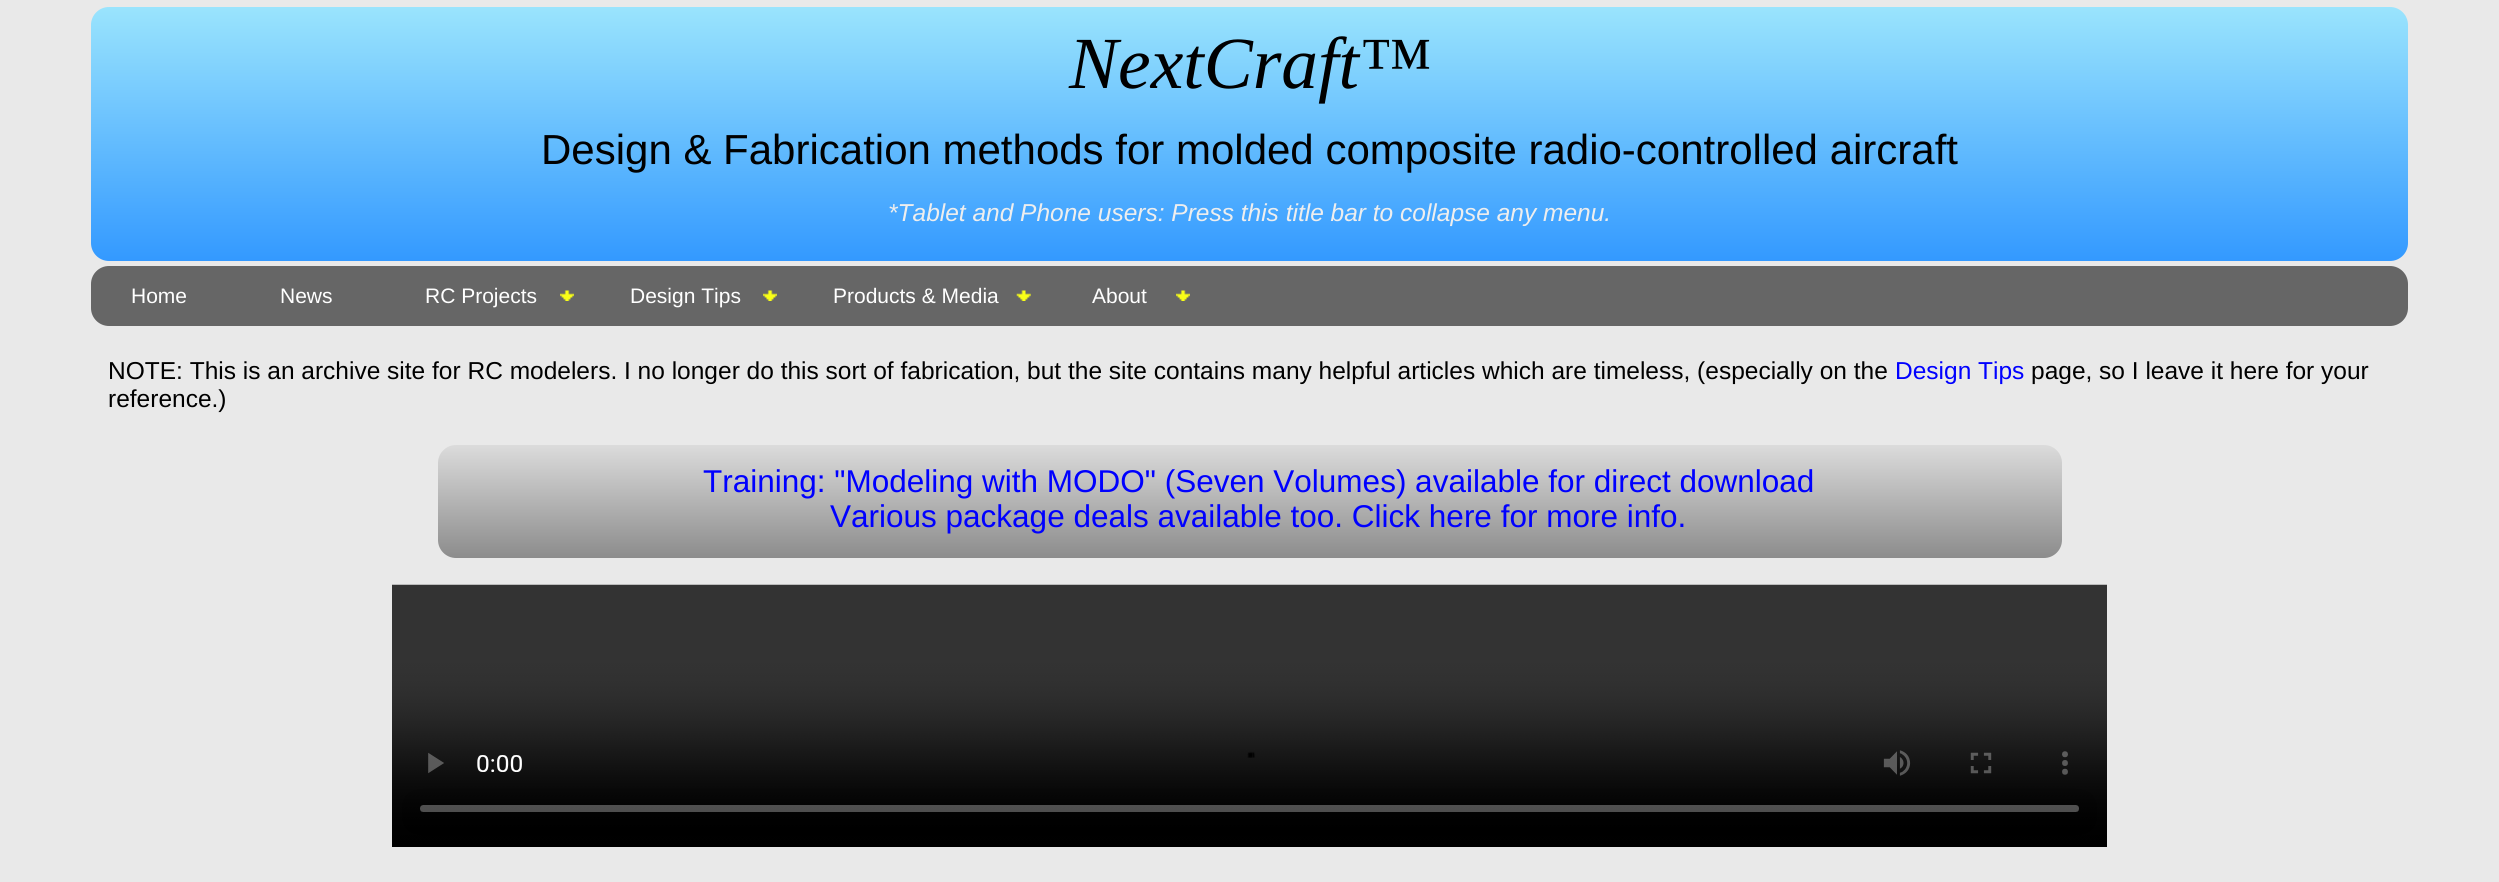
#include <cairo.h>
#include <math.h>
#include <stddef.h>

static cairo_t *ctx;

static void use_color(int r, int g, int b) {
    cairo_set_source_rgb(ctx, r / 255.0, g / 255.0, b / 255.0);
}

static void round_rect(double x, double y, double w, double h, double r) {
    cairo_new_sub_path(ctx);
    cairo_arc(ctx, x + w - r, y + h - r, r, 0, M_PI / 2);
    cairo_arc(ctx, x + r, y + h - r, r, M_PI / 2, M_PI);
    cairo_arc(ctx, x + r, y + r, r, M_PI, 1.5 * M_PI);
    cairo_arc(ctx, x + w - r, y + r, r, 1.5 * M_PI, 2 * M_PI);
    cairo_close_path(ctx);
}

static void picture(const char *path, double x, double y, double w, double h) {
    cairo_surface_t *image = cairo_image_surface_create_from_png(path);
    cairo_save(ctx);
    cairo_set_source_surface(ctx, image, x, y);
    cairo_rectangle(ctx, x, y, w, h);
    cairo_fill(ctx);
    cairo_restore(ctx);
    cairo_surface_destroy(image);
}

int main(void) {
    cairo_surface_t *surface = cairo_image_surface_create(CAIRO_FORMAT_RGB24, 2499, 882);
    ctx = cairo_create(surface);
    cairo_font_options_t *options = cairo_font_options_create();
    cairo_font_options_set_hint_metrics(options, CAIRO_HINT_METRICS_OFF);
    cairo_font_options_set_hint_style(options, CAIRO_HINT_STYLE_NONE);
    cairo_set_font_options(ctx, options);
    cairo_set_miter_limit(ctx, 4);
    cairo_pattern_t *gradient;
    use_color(233, 233, 233);
    cairo_paint(ctx);
    gradient = cairo_pattern_create_linear(1250, 7, 1250, 261);
    cairo_pattern_add_color_stop_rgba(gradient, 0, 0.604, 0.894, 0.992, 1);
    cairo_pattern_add_color_stop_rgba(gradient, 1, 0.2, 0.6, 1, 1);
    cairo_set_source(ctx, gradient);
    cairo_pattern_destroy(gradient);
    round_rect(91, 7, 2317, 254, 18);
    cairo_fill(ctx);
    cairo_select_font_face(ctx, "Liberation Serif", CAIRO_FONT_SLANT_ITALIC, CAIRO_FONT_WEIGHT_NORMAL);
    cairo_set_font_size(ctx, 73.5);
    use_color(0, 0, 0);
    cairo_move_to(ctx, 1069, 88);
    cairo_show_text(ctx, "NextCraft™");
    cairo_select_font_face(ctx, "Liberation Sans", CAIRO_FONT_SLANT_NORMAL, CAIRO_FONT_WEIGHT_NORMAL);
    cairo_set_font_size(ctx, 42);
    cairo_move_to(ctx, 541, 164);
    cairo_show_text(ctx, "Design & Fabrication methods for molded composite radio-controlled aircraft");
    cairo_select_font_face(ctx, "Liberation Sans", CAIRO_FONT_SLANT_ITALIC, CAIRO_FONT_WEIGHT_NORMAL);
    cairo_set_font_size(ctx, 24.5);
    use_color(238, 238, 238);
    cairo_move_to(ctx, 888, 221);
    cairo_show_text(ctx, "*Tablet and Phone users: Press this title bar to collapse any menu.");
    use_color(102, 102, 102);
    round_rect(91, 266, 2317, 60, 18);
    cairo_fill(ctx);
    cairo_select_font_face(ctx, "Liberation Sans", CAIRO_FONT_SLANT_NORMAL, CAIRO_FONT_WEIGHT_NORMAL);
    cairo_set_font_size(ctx, 21);
    use_color(255, 255, 255);
    cairo_move_to(ctx, 131, 303);
    cairo_show_text(ctx, "Home");
    cairo_move_to(ctx, 280, 303);
    cairo_show_text(ctx, "News");
    picture("img1.png", 560, 290, 14, 11);
    cairo_move_to(ctx, 425, 303);
    cairo_show_text(ctx, "RC Projects");
    picture("img1.png", 763, 290, 14, 11);
    cairo_move_to(ctx, 630, 303);
    cairo_show_text(ctx, "Design Tips");
    picture("img2.png", 1016, 290, 15, 11);
    cairo_move_to(ctx, 833, 303);
    cairo_show_text(ctx, "Products & Media");
    picture("img3.png", 1176, 290, 14, 11);
    cairo_move_to(ctx, 1092, 303);
    cairo_show_text(ctx, "About");
    cairo_set_font_size(ctx, 24.5);
    use_color(0, 0, 0);
    cairo_move_to(ctx, 108, 379);
    cairo_show_text(ctx, "NOTE: This is an archive site for RC modelers. I no longer do this sort of fabrication, but the site contains many helpful articles which are timeless, (especially on the");
    use_color(0, 0, 255);
    cairo_move_to(ctx, 1895, 379);
    cairo_show_text(ctx, "Design Tips");
    use_color(0, 0, 0);
    cairo_move_to(ctx, 2031, 379);
    cairo_show_text(ctx, "page, so I leave it here for your");
    cairo_move_to(ctx, 108, 407);
    cairo_show_text(ctx, "reference.)");
    gradient = cairo_pattern_create_linear(1250, 444, 1250, 558);
    cairo_pattern_add_color_stop_rgba(gradient, 0, 0.863, 0.863, 0.863, 1);
    cairo_pattern_add_color_stop_rgba(gradient, 1, 0.549, 0.549, 0.549, 1);
    cairo_set_source(ctx, gradient);
    cairo_pattern_destroy(gradient);
    round_rect(438, 445, 1624, 113, 18);
    cairo_fill(ctx);
    cairo_set_font_size(ctx, 31.5);
    use_color(0, 0, 255);
    cairo_move_to(ctx, 703, 492);
    cairo_show_text(ctx, "Training: \"Modeling with MODO\" (Seven Volumes) available for direct download");
    cairo_move_to(ctx, 830, 527);
    cairo_show_text(ctx, "Various package deals available too. Click here for more info.");
    picture("img4.png", 392, 584, 1715, 263);
    cairo_surface_write_to_png(surface, "result.png");
    cairo_font_options_destroy(options);
    cairo_destroy(ctx);
    cairo_surface_destroy(surface);
    return 0;
}
